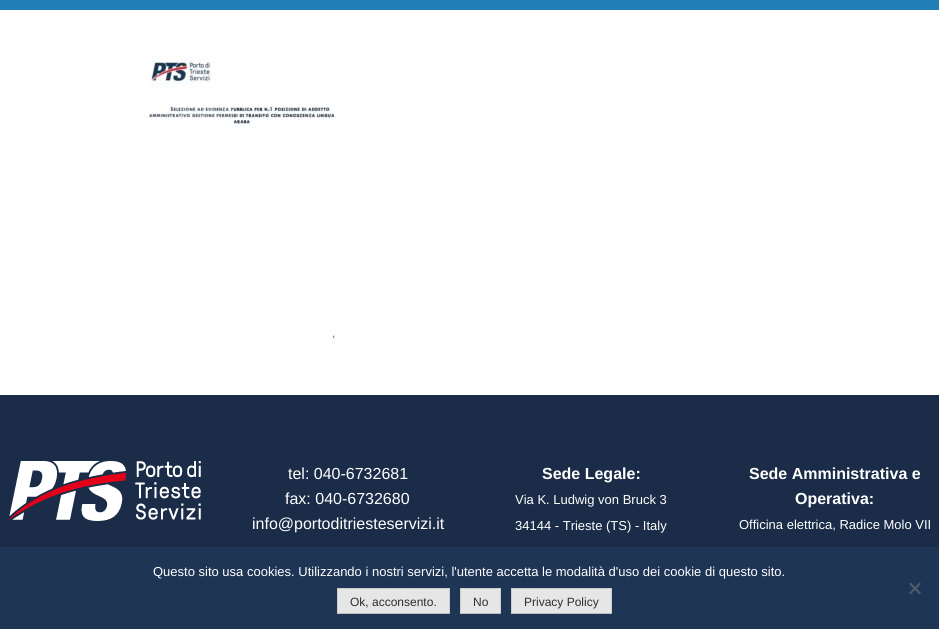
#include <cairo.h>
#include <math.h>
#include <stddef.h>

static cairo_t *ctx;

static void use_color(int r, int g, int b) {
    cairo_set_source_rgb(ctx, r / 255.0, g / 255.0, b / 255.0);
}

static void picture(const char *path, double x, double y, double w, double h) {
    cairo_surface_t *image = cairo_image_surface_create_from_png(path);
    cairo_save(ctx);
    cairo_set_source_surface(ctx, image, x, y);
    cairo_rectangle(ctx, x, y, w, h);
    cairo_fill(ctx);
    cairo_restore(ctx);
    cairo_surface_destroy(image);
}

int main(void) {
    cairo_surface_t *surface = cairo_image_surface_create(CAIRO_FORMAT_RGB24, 939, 629);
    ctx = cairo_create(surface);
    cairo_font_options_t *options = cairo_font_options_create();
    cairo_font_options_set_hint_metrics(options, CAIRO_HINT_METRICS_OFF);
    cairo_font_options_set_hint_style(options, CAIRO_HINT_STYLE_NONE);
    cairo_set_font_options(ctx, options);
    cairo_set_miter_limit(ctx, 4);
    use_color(255, 255, 255);
    cairo_paint(ctx);
    use_color(35, 125, 182);
    cairo_rectangle(ctx, 0, 0, 939, 10);
    cairo_fill(ctx);
    picture("img1.png", 144, 56, 192, 288);
    use_color(26, 44, 71);
    cairo_rectangle(ctx, 0, 395, 939, 152);
    cairo_fill(ctx);
    picture("img2.png", 8, 461, 193, 60);
    cairo_select_font_face(ctx, "Liberation Sans", CAIRO_FONT_SLANT_NORMAL, CAIRO_FONT_WEIGHT_NORMAL);
    cairo_set_font_size(ctx, 16);
    use_color(255, 255, 255);
    cairo_move_to(ctx, 288, 479);
    cairo_show_text(ctx, "tel: 040-6732681");
    cairo_move_to(ctx, 285, 504);
    cairo_show_text(ctx, "fax: 040-6732680");
    cairo_move_to(ctx, 252, 529);
    cairo_show_text(ctx, "info@portoditriesteservizi.it");
    cairo_select_font_face(ctx, "Liberation Sans", CAIRO_FONT_SLANT_NORMAL, CAIRO_FONT_WEIGHT_BOLD);
    cairo_move_to(ctx, 542, 479);
    cairo_show_text(ctx, "Sede Legale:");
    cairo_select_font_face(ctx, "Liberation Sans", CAIRO_FONT_SLANT_NORMAL, CAIRO_FONT_WEIGHT_NORMAL);
    cairo_set_font_size(ctx, 13);
    cairo_move_to(ctx, 515, 504);
    cairo_show_text(ctx, "Via K. Ludwig von Bruck 3");
    cairo_move_to(ctx, 515, 530);
    cairo_show_text(ctx, "34144 - Trieste (TS) - Italy");
    cairo_select_font_face(ctx, "Liberation Sans", CAIRO_FONT_SLANT_NORMAL, CAIRO_FONT_WEIGHT_BOLD);
    cairo_set_font_size(ctx, 16);
    cairo_move_to(ctx, 749, 479);
    cairo_show_text(ctx, "Sede Amministrativa e");
    cairo_move_to(ctx, 795, 504);
    cairo_show_text(ctx, "Operativa:");
    cairo_select_font_face(ctx, "Liberation Sans", CAIRO_FONT_SLANT_NORMAL, CAIRO_FONT_WEIGHT_NORMAL);
    cairo_set_font_size(ctx, 13);
    cairo_move_to(ctx, 739, 529);
    cairo_show_text(ctx, "Officina elettrica, Radice Molo VII");
    use_color(31, 53, 85);
    cairo_rectangle(ctx, 0, 547, 939, 82);
    cairo_fill(ctx);
    use_color(255, 255, 255);
    cairo_move_to(ctx, 153, 576);
    cairo_show_text(ctx, "Questo sito usa cookies. Utilizzando i nostri servizi, l'utente accetta le modalità d'uso dei cookie di questo sito.");
    use_color(80, 91, 107);
    cairo_new_path(ctx);
    cairo_move_to(ctx, 919.5, 582.5);
    cairo_line_to(ctx, 921, 584);
    cairo_line_to(ctx, 910.5, 594.5);
    cairo_line_to(ctx, 909, 593);
    cairo_close_path(ctx);
    cairo_fill(ctx);
    cairo_new_path(ctx);
    cairo_move_to(ctx, 909, 584);
    cairo_line_to(ctx, 910.5, 582.5);
    cairo_line_to(ctx, 921, 593);
    cairo_line_to(ctx, 919.5, 594.5);
    cairo_close_path(ctx);
    cairo_fill(ctx);
    use_color(230, 230, 230);
    cairo_rectangle(ctx, 338, 589, 111, 24);
    cairo_fill(ctx);
    use_color(204, 204, 204);
    cairo_rectangle(ctx, 337, 588, 113, 1);
    cairo_fill(ctx);
    cairo_rectangle(ctx, 449, 588, 1, 26);
    cairo_fill(ctx);
    use_color(187, 187, 187);
    cairo_rectangle(ctx, 337, 613, 113, 1);
    cairo_fill(ctx);
    use_color(204, 204, 204);
    cairo_rectangle(ctx, 337, 588, 1, 26);
    cairo_fill(ctx);
    cairo_set_font_size(ctx, 12);
    use_color(46, 46, 46);
    cairo_move_to(ctx, 350, 606);
    cairo_show_text(ctx, "Ok, acconsento.");
    use_color(230, 230, 230);
    cairo_rectangle(ctx, 461, 589, 39, 24);
    cairo_fill(ctx);
    use_color(204, 204, 204);
    cairo_rectangle(ctx, 460, 588, 41, 1);
    cairo_fill(ctx);
    cairo_rectangle(ctx, 500, 588, 1, 26);
    cairo_fill(ctx);
    use_color(187, 187, 187);
    cairo_rectangle(ctx, 460, 613, 41, 1);
    cairo_fill(ctx);
    use_color(204, 204, 204);
    cairo_rectangle(ctx, 460, 588, 1, 26);
    cairo_fill(ctx);
    use_color(46, 46, 46);
    cairo_move_to(ctx, 473, 606);
    cairo_show_text(ctx, "No");
    use_color(230, 230, 230);
    cairo_rectangle(ctx, 512, 589, 99, 24);
    cairo_fill(ctx);
    use_color(204, 204, 204);
    cairo_rectangle(ctx, 511, 588, 101, 1);
    cairo_fill(ctx);
    cairo_rectangle(ctx, 611, 588, 1, 26);
    cairo_fill(ctx);
    use_color(187, 187, 187);
    cairo_rectangle(ctx, 511, 613, 101, 1);
    cairo_fill(ctx);
    use_color(204, 204, 204);
    cairo_rectangle(ctx, 511, 588, 1, 26);
    cairo_fill(ctx);
    use_color(46, 46, 46);
    cairo_move_to(ctx, 524, 606);
    cairo_show_text(ctx, "Privacy Policy");
    cairo_surface_write_to_png(surface, "result.png");
    cairo_font_options_destroy(options);
    cairo_destroy(ctx);
    cairo_surface_destroy(surface);
    return 0;
}
